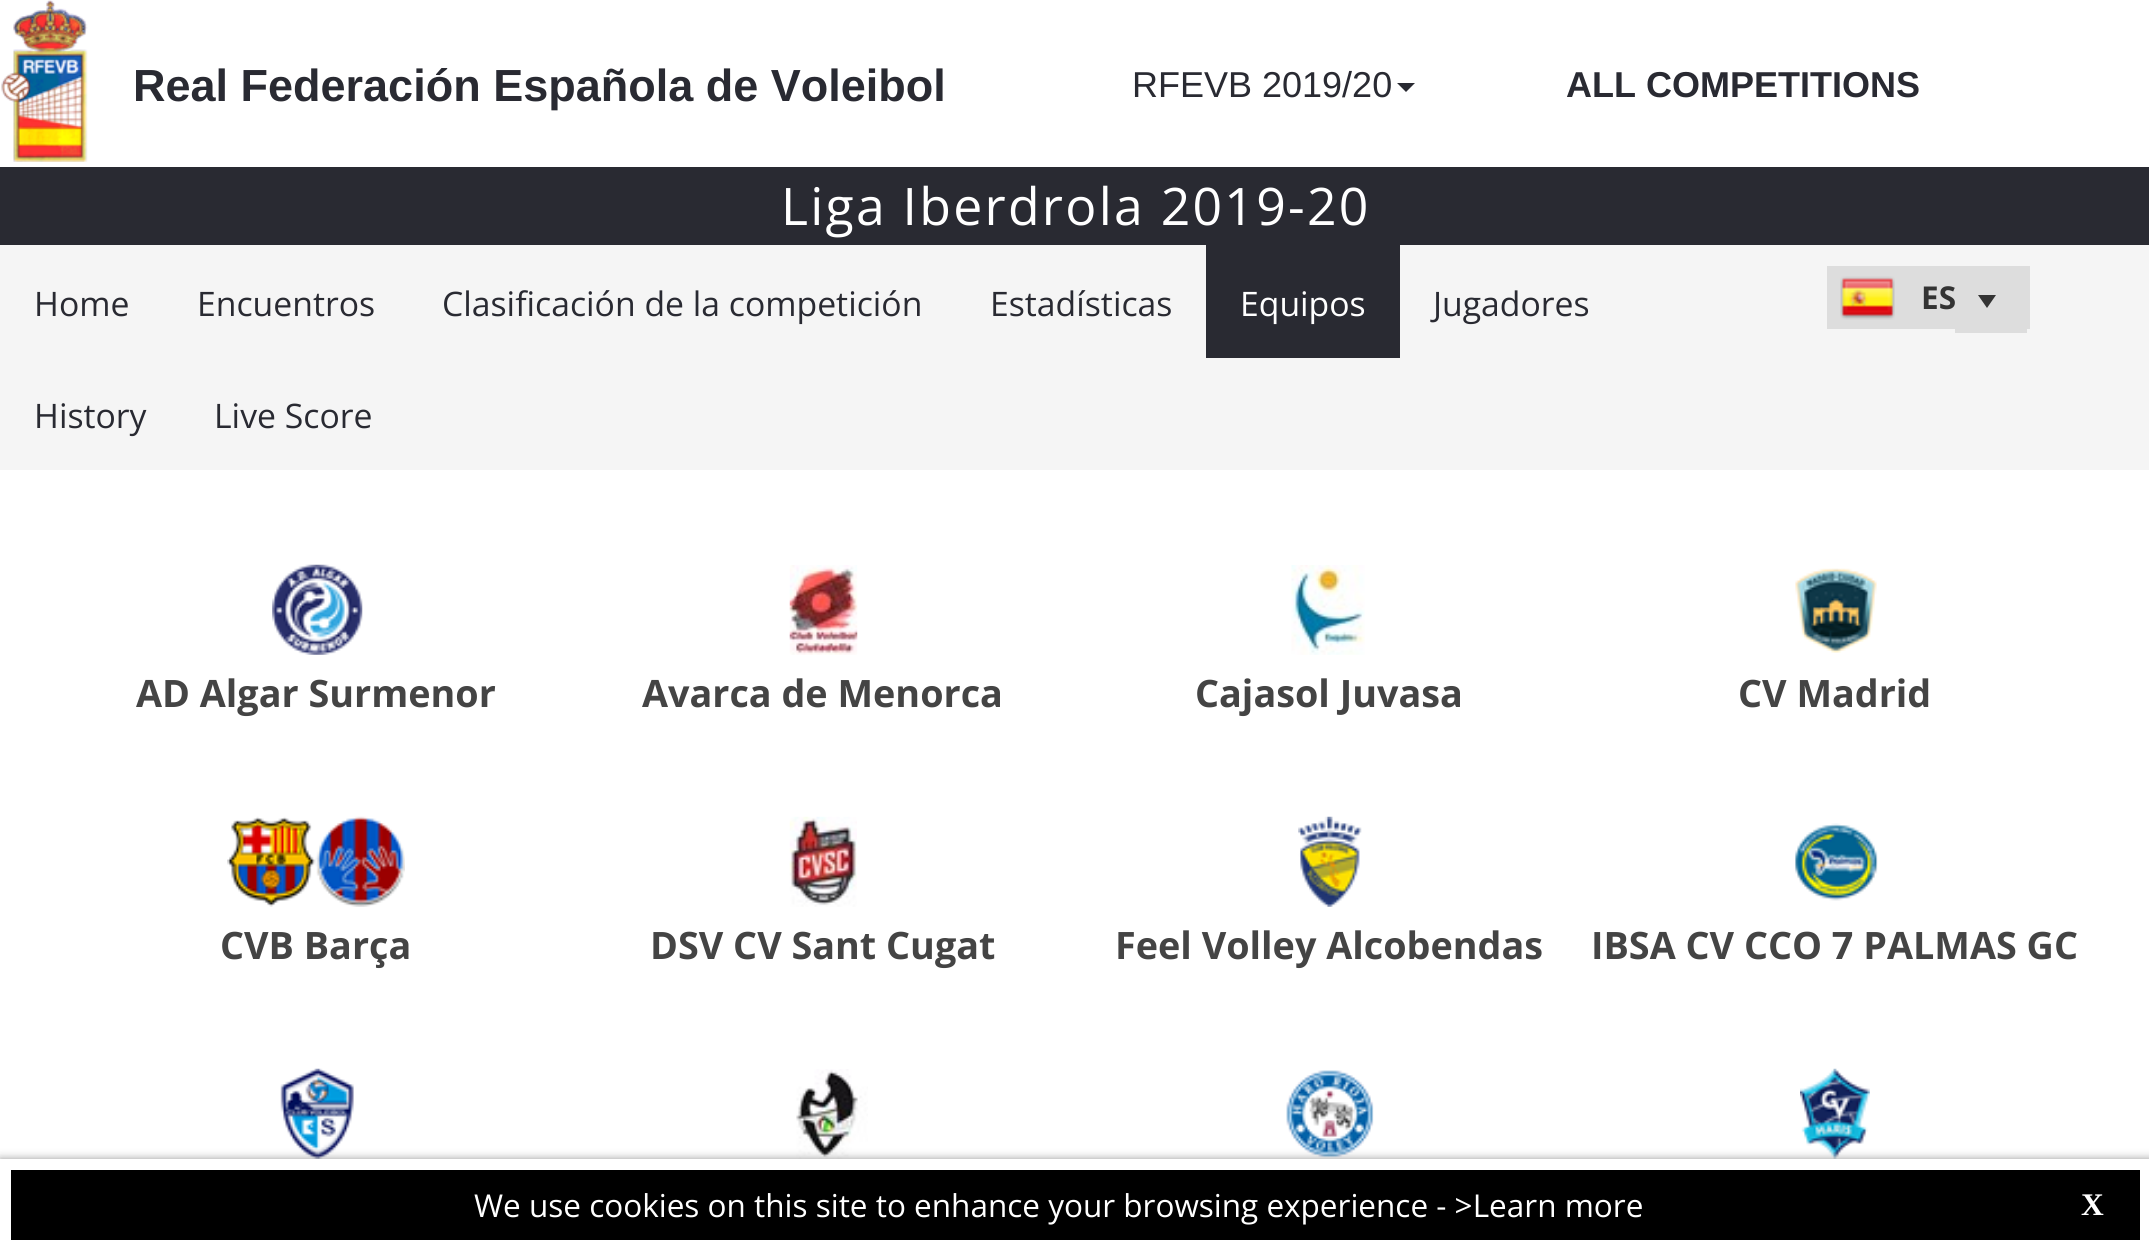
#include <cairo.h>
#include <math.h>
#include <stddef.h>

static cairo_t *ctx;

static void use_color(int r, int g, int b) {
    cairo_set_source_rgb(ctx, r / 255.0, g / 255.0, b / 255.0);
}

static void spaced_text(double x, double y, const char *s, double letter, double word) {
    cairo_move_to(ctx, x, y);
    while (*s) {
        char ch[5] = {0};
        int n = 0;
        do ch[n++] = *s++; while ((*s & 0xC0) == 0x80);
        cairo_show_text(ctx, ch);
        cairo_rel_move_to(ctx, letter + word * (*ch == ' '), 0);
    }
}

static void round_rect(double x, double y, double w, double h, double r) {
    cairo_new_sub_path(ctx);
    cairo_arc(ctx, x + w - r, y + h - r, r, 0, M_PI / 2);
    cairo_arc(ctx, x + r, y + h - r, r, M_PI / 2, M_PI);
    cairo_arc(ctx, x + r, y + r, r, M_PI, 1.5 * M_PI);
    cairo_arc(ctx, x + w - r, y + r, r, 1.5 * M_PI, 2 * M_PI);
    cairo_close_path(ctx);
}

static void shadow(double x, double y, double w, double h, double r, double blur, double alpha) {
    cairo_push_group_with_content(ctx, CAIRO_CONTENT_ALPHA);
    cairo_set_operator(ctx, CAIRO_OPERATOR_SOURCE);
    for (int i = 15; i >= -15 && fmin(w, h) + blur * i / 3 > 0; i -= 2) {
        double e = blur * i / 6;
        cairo_set_source_rgba(ctx, 0, 0, 0, alpha * erfc((i - 1) / 8.5) / 2);
        round_rect(x - e, y - e, w + 2 * e, h + 2 * e, fmax(0, fmin(r + e + blur * .6, fmin(w, h) / 2 + e)));
        cairo_fill(ctx);
    }
    cairo_pattern_t *soft = cairo_pop_group(ctx);
    cairo_mask(ctx, soft);
    cairo_pattern_destroy(soft);
}

static void picture(const char *path, double x, double y, double w, double h) {
    cairo_surface_t *image = cairo_image_surface_create_from_png(path);
    cairo_save(ctx);
    cairo_set_source_surface(ctx, image, x, y);
    cairo_rectangle(ctx, x, y, w, h);
    cairo_fill(ctx);
    cairo_restore(ctx);
    cairo_surface_destroy(image);
}

int main(void) {
    cairo_surface_t *surface = cairo_image_surface_create(CAIRO_FORMAT_RGB24, 2149, 1250);
    ctx = cairo_create(surface);
    cairo_font_options_t *options = cairo_font_options_create();
    cairo_font_options_set_hint_metrics(options, CAIRO_HINT_METRICS_OFF);
    cairo_font_options_set_hint_style(options, CAIRO_HINT_STYLE_NONE);
    cairo_set_font_options(ctx, options);
    cairo_set_miter_limit(ctx, 4);
    use_color(255, 255, 255);
    cairo_paint(ctx);
    picture("img1.png", 1, 0, 87, 162);
    cairo_select_font_face(ctx, "Liberation Sans", CAIRO_FONT_SLANT_NORMAL, CAIRO_FONT_WEIGHT_BOLD);
    cairo_set_font_size(ctx, 45);
    use_color(41, 42, 50);
    cairo_move_to(ctx, 133, 101);
    cairo_show_text(ctx, "Real Federación Española de Voleibol");
    cairo_select_font_face(ctx, "Liberation Sans", CAIRO_FONT_SLANT_NORMAL, CAIRO_FONT_WEIGHT_NORMAL);
    cairo_set_font_size(ctx, 36);
    cairo_move_to(ctx, 1132, 97);
    cairo_show_text(ctx, "RFEVB 2019/20");
    cairo_new_path(ctx);
    cairo_move_to(ctx, 1397, 83);
    cairo_line_to(ctx, 1415, 83);
    cairo_line_to(ctx, 1406, 92);
    cairo_close_path(ctx);
    cairo_fill(ctx);
    cairo_select_font_face(ctx, "Liberation Sans", CAIRO_FONT_SLANT_NORMAL, CAIRO_FONT_WEIGHT_BOLD);
    cairo_move_to(ctx, 1566, 97);
    cairo_show_text(ctx, "ALL COMPETITIONS");
    cairo_rectangle(ctx, 0, 167, 2149, 78);
    cairo_fill(ctx);
    cairo_select_font_face(ctx, "Open Sans", CAIRO_FONT_SLANT_NORMAL, CAIRO_FONT_WEIGHT_NORMAL);
    cairo_set_font_size(ctx, 51.75);
    use_color(255, 255, 255);
    spaced_text(781, 225, "Liga Iberdrola 2019-20", 2.25, 0);
    use_color(245, 245, 245);
    cairo_rectangle(ctx, 0, 245, 2149, 225);
    cairo_fill(ctx);
    cairo_set_font_size(ctx, 33.75);
    use_color(41, 42, 50);
    cairo_move_to(ctx, 34, 316);
    cairo_show_text(ctx, "Home");
    cairo_move_to(ctx, 197, 316);
    cairo_show_text(ctx, "Encuentros");
    cairo_move_to(ctx, 442, 316);
    cairo_show_text(ctx, "Clasificación de la competición");
    cairo_move_to(ctx, 990, 316);
    cairo_show_text(ctx, "Estadísticas");
    cairo_rectangle(ctx, 1206, 245, 194, 113);
    cairo_fill(ctx);
    use_color(255, 255, 255);
    cairo_move_to(ctx, 1240, 316);
    cairo_show_text(ctx, "Equipos");
    use_color(41, 42, 50);
    cairo_move_to(ctx, 1433, 316);
    cairo_show_text(ctx, "Jugadores");
    cairo_move_to(ctx, 34, 428);
    cairo_show_text(ctx, "History");
    cairo_move_to(ctx, 214, 428);
    cairo_show_text(ctx, "Live Score");
    use_color(221, 221, 221);
    cairo_rectangle(ctx, 1827, 266, 203, 63);
    cairo_fill(ctx);
    picture("img2.png", 1840, 276, 55, 44);
    cairo_select_font_face(ctx, "Open Sans", CAIRO_FONT_SLANT_NORMAL, CAIRO_FONT_WEIGHT_BOLD);
    cairo_set_font_size(ctx, 31.5);
    use_color(51, 51, 51);
    cairo_move_to(ctx, 1921, 309);
    cairo_show_text(ctx, "ES");
    use_color(221, 221, 221);
    cairo_rectangle(ctx, 1955, 329, 72, 4);
    cairo_fill(ctx);
    use_color(51, 51, 51);
    cairo_new_path(ctx);
    cairo_move_to(ctx, 1987, 308);
    cairo_line_to(ctx, 1978, 295);
    cairo_line_to(ctx, 1996, 295);
    cairo_close_path(ctx);
    cairo_fill(ctx);
    picture("img3.png", 272, 564, 91, 91);
    cairo_set_font_size(ctx, 37.75);
    use_color(68, 68, 68);
    cairo_move_to(ctx, 136, 707);
    cairo_show_text(ctx, "AD Algar Surmenor");
    picture("img4.png", 789, 565, 69, 90);
    cairo_move_to(ctx, 642, 707);
    cairo_show_text(ctx, "Avarca de Menorca");
    picture("img5.png", 1291, 565, 74, 90);
    cairo_move_to(ctx, 1195, 707);
    cairo_show_text(ctx, "Cajasol Juvasa");
    picture("img6.png", 1795, 568, 82, 85);
    cairo_move_to(ctx, 1738, 707);
    cairo_show_text(ctx, "CV Madrid");
    picture("img7.png", 227, 816, 178, 91);
    cairo_move_to(ctx, 220, 959);
    cairo_show_text(ctx, "CVB Barça");
    picture("img8.png", 789, 816, 68, 91);
    cairo_move_to(ctx, 650, 959);
    cairo_show_text(ctx, "DSV CV Sant Cugat");
    picture("img9.png", 1298, 816, 64, 91);
    cairo_move_to(ctx, 1115, 959);
    cairo_show_text(ctx, "Feel Volley Alcobendas");
    picture("img10.png", 1795, 823, 83, 78);
    cairo_move_to(ctx, 1591, 959);
    cairo_show_text(ctx, "IBSA CV CCO 7 PALMAS GC");
    picture("img11.png", 280, 1068, 74, 91);
    picture("img12.png", 796, 1069, 72, 90);
    picture("img13.png", 1286, 1070, 88, 88);
    picture("img14.png", 1800, 1068, 70, 91);
    use_color(153, 153, 153);
    shadow(0, 1159, 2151, 90, 0, 4.5, 1);
    use_color(0, 0, 0);
    cairo_rectangle(ctx, 5.5, 1164.5, 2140, 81);
    cairo_fill_preserve(ctx);
    use_color(255, 255, 255);
    cairo_set_line_width(ctx, 11);
    cairo_stroke(ctx);
    cairo_select_font_face(ctx, "Open Sans", CAIRO_FONT_SLANT_NORMAL, CAIRO_FONT_WEIGHT_NORMAL);
    cairo_set_font_size(ctx, 31.5);
    cairo_move_to(ctx, 474, 1217);
    cairo_show_text(ctx, "We use cookies on this site to enhance your browsing experience - >Learn more");
    cairo_select_font_face(ctx, "Liberation Serif", CAIRO_FONT_SLANT_NORMAL, CAIRO_FONT_WEIGHT_BOLD);
    cairo_move_to(ctx, 2081, 1215);
    cairo_show_text(ctx, "X");
    cairo_surface_write_to_png(surface, "result.png");
    cairo_font_options_destroy(options);
    cairo_destroy(ctx);
    cairo_surface_destroy(surface);
    return 0;
}
